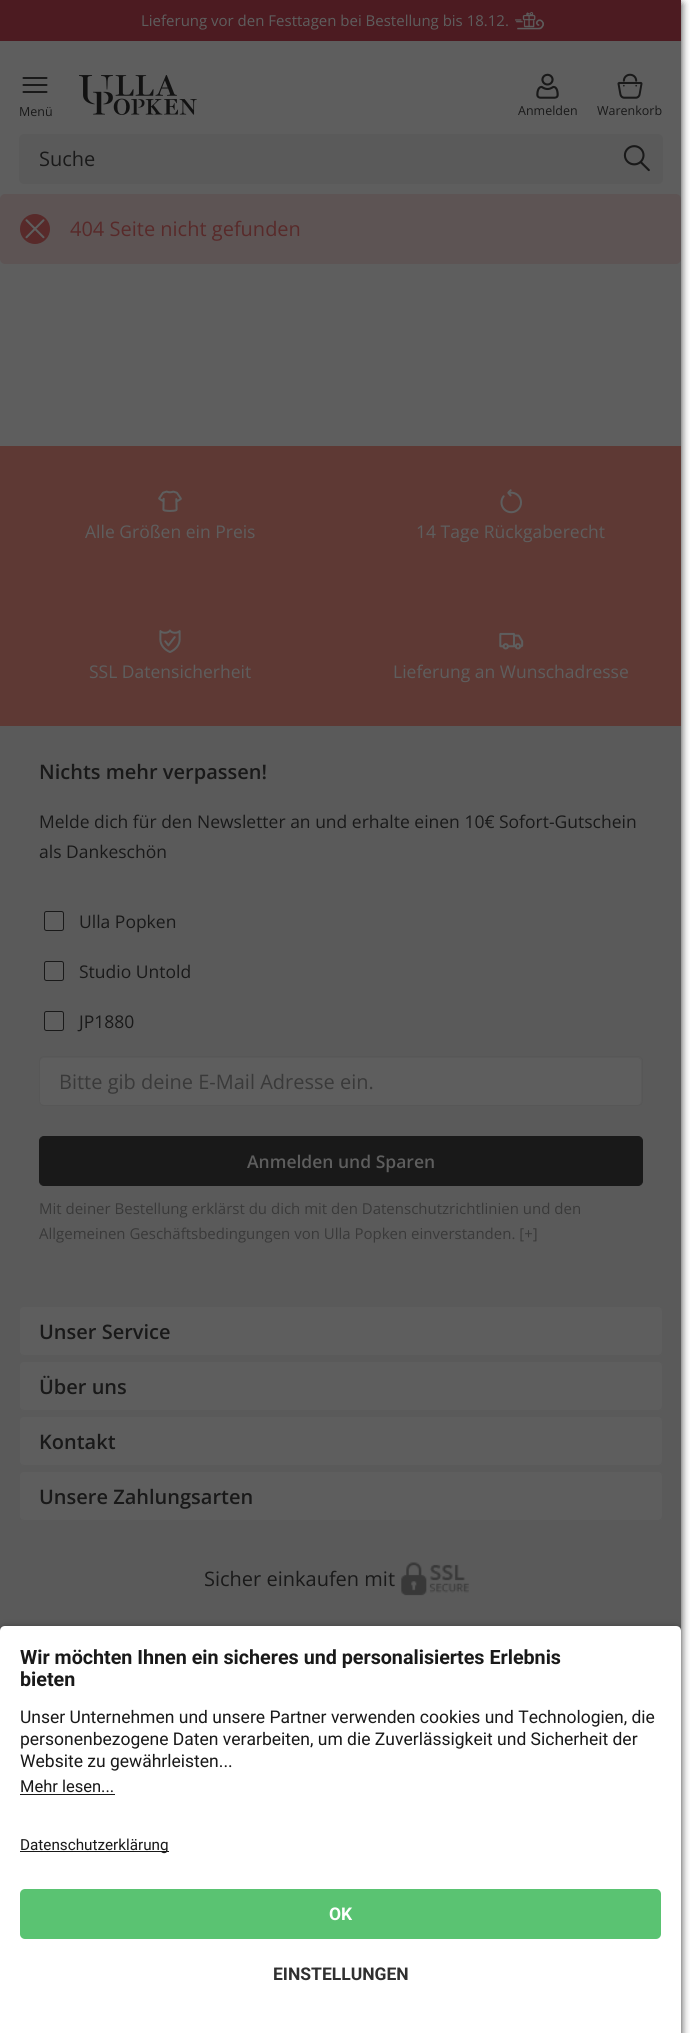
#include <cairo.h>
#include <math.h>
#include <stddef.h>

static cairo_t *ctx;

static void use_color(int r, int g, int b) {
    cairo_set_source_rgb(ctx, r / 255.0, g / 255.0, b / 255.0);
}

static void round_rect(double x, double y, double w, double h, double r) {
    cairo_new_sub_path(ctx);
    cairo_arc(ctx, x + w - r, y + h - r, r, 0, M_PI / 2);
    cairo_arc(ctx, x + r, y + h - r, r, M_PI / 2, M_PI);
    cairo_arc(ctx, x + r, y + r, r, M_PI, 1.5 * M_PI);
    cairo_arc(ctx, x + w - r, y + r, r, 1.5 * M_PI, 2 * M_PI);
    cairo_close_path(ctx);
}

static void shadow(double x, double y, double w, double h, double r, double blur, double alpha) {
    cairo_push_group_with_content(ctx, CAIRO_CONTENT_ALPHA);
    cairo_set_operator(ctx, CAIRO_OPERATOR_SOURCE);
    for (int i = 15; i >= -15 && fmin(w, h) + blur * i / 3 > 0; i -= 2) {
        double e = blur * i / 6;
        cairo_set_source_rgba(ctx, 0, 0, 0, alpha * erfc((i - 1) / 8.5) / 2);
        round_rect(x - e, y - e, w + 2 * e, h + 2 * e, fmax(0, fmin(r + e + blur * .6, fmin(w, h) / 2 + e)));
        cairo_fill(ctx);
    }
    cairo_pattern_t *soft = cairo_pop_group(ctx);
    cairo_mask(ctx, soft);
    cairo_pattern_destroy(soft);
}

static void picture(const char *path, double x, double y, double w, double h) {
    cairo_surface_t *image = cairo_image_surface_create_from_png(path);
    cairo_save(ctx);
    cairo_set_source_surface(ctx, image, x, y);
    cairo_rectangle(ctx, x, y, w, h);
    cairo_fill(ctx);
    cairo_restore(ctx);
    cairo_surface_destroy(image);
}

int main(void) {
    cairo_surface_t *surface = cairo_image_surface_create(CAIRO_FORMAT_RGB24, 699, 2033);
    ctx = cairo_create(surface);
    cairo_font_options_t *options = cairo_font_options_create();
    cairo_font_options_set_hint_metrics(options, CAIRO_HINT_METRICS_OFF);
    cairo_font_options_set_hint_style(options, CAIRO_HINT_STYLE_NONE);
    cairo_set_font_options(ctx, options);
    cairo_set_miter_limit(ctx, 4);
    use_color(255, 255, 255);
    cairo_paint(ctx);
    use_color(94, 94, 94);
    cairo_rectangle(ctx, 0, 41, 681, 405);
    cairo_fill(ctx);
    use_color(76, 27, 33);
    cairo_rectangle(ctx, 0, 0, 681, 41);
    cairo_fill(ctx);
    cairo_select_font_face(ctx, "Open Sans", CAIRO_FONT_SLANT_NORMAL, CAIRO_FONT_WEIGHT_NORMAL);
    cairo_set_font_size(ctx, 15);
    use_color(94, 94, 94);
    cairo_move_to(ctx, 141, 26);
    cairo_show_text(ctx, "Lieferung vor den Festtagen bei Bestellung bis 18.12.");
    picture("img1.png", 515, 12, 29, 18);
    picture("img2.png", 22, 77, 26, 16);
    cairo_set_font_size(ctx, 12.5);
    use_color(25, 25, 25);
    cairo_move_to(ctx, 19, 116);
    cairo_show_text(ctx, "Menü");
    picture("img3.png", 79, 75, 118, 40);
    picture("img4.png", 536, 73, 23, 26);
    cairo_move_to(ctx, 518, 115);
    cairo_show_text(ctx, "Anmelden");
    picture("img5.png", 617, 73, 26, 26);
    cairo_move_to(ctx, 597, 115);
    cairo_show_text(ctx, "Warenkorb");
    use_color(90, 90, 90);
    round_rect(19, 134, 644, 50, 5);
    cairo_fill(ctx);
    cairo_set_font_size(ctx, 20);
    use_color(25, 25, 25);
    cairo_move_to(ctx, 39, 166);
    cairo_show_text(ctx, "Suche");
    picture("img6.png", 623, 145, 27, 27);
    use_color(93, 84, 84);
    round_rect(0, 194, 681, 70, 5);
    cairo_fill(ctx);
    use_color(88, 42, 42);
    cairo_arc(ctx, 35, 229, 15, 0, 2 * M_PI);
    cairo_fill(ctx);
    picture("img7.png", 25, 219, 20, 20);
    cairo_move_to(ctx, 70, 236);
    cairo_show_text(ctx, "404 Seite nicht gefunden");
    use_color(94, 57, 52);
    cairo_rectangle(ctx, 0, 446, 681, 280);
    cairo_fill(ctx);
    picture("img8.png", 158, 490, 24, 22);
    cairo_set_font_size(ctx, 17.5);
    use_color(94, 94, 94);
    cairo_move_to(ctx, 85, 538);
    cairo_show_text(ctx, "Alle Größen ein Preis");
    picture("img9.png", 500, 489, 22, 25);
    cairo_move_to(ctx, 416, 538);
    cairo_show_text(ctx, "14 Tage Rückgaberecht");
    picture("img10.png", 159, 629, 22, 24);
    cairo_move_to(ctx, 89, 678);
    cairo_show_text(ctx, "SSL Datensicherheit");
    picture("img11.png", 499, 632, 25, 18);
    cairo_move_to(ctx, 393, 678);
    cairo_show_text(ctx, "Lieferung an Wunschadresse");
    use_color(90, 90, 90);
    cairo_rectangle(ctx, 0, 726, 681, 905);
    cairo_fill(ctx);
    cairo_select_font_face(ctx, "Open Sans SemiBold", CAIRO_FONT_SLANT_NORMAL, CAIRO_FONT_WEIGHT_NORMAL);
    cairo_set_font_size(ctx, 20);
    use_color(25, 25, 25);
    cairo_move_to(ctx, 39, 779);
    cairo_show_text(ctx, "Nichts mehr verpassen!");
    cairo_select_font_face(ctx, "Open Sans", CAIRO_FONT_SLANT_NORMAL, CAIRO_FONT_WEIGHT_NORMAL);
    cairo_set_font_size(ctx, 17.5);
    cairo_move_to(ctx, 39, 828);
    cairo_show_text(ctx, "Melde dich für den Newsletter an und erhalte einen 10€ Sofort-Gutschein");
    cairo_move_to(ctx, 39, 858);
    cairo_show_text(ctx, "als Dankeschön");
    use_color(94, 94, 94);
    round_rect(44.5, 911.5, 19, 19, 2);
    cairo_fill_preserve(ctx);
    use_color(25, 25, 25);
    cairo_set_line_width(ctx, 1);
    cairo_stroke(ctx);
    cairo_move_to(ctx, 79, 928);
    cairo_show_text(ctx, "Ulla Popken");
    use_color(94, 94, 94);
    round_rect(44.5, 961.5, 19, 19, 2);
    cairo_fill_preserve(ctx);
    use_color(25, 25, 25);
    cairo_stroke(ctx);
    cairo_move_to(ctx, 79, 978);
    cairo_show_text(ctx, "Studio Untold");
    use_color(94, 94, 94);
    round_rect(44.5, 1011.5, 19, 19, 2);
    cairo_fill_preserve(ctx);
    use_color(25, 25, 25);
    cairo_stroke(ctx);
    cairo_move_to(ctx, 79, 1028);
    cairo_show_text(ctx, "JP1880");
    use_color(94, 94, 94);
    round_rect(40, 1058, 601, 47, 4);
    cairo_fill(ctx);
    round_rect(39.5, 1056.5, 603, 49, 4.5);
    use_color(87, 87, 87);
    cairo_stroke(ctx);
    cairo_set_font_size(ctx, 20);
    use_color(57, 57, 57);
    cairo_move_to(ctx, 59, 1089);
    cairo_show_text(ctx, "Bitte gib deine E-Mail Adresse ein.");
    use_color(25, 25, 25);
    round_rect(39.5, 1136.5, 603, 49, 4.5);
    cairo_fill_preserve(ctx);
    cairo_stroke(ctx);
    cairo_select_font_face(ctx, "Open Sans SemiBold", CAIRO_FONT_SLANT_NORMAL, CAIRO_FONT_WEIGHT_NORMAL);
    cairo_set_font_size(ctx, 17.5);
    use_color(94, 94, 94);
    cairo_move_to(ctx, 247, 1168);
    cairo_show_text(ctx, "Anmelden und Sparen");
    cairo_select_font_face(ctx, "Open Sans", CAIRO_FONT_SLANT_NORMAL, CAIRO_FONT_WEIGHT_NORMAL);
    cairo_set_font_size(ctx, 15);
    use_color(57, 57, 57);
    cairo_move_to(ctx, 39, 1214);
    cairo_show_text(ctx, "Mit deiner Bestellung erklärst du dich mit den Datenschutzrichtlinien und den");
    cairo_move_to(ctx, 39, 1239);
    cairo_show_text(ctx, "Allgemeinen Geschäftsbedingungen von Ulla Popken einverstanden. [+]");
    use_color(94, 94, 94);
    round_rect(19.5, 1306.5, 643, 49, 4.5);
    cairo_fill_preserve(ctx);
    use_color(90, 90, 90);
    cairo_stroke(ctx);
    cairo_select_font_face(ctx, "Open Sans SemiBold", CAIRO_FONT_SLANT_NORMAL, CAIRO_FONT_WEIGHT_NORMAL);
    cairo_set_font_size(ctx, 20);
    use_color(25, 25, 25);
    cairo_move_to(ctx, 39, 1339);
    cairo_show_text(ctx, "Unser Service");
    use_color(94, 94, 94);
    round_rect(19.5, 1361.5, 643, 49, 4.5);
    cairo_fill_preserve(ctx);
    use_color(90, 90, 90);
    cairo_stroke(ctx);
    use_color(25, 25, 25);
    cairo_move_to(ctx, 39, 1394);
    cairo_show_text(ctx, "Über uns");
    use_color(94, 94, 94);
    round_rect(19.5, 1416.5, 643, 49, 4.5);
    cairo_fill_preserve(ctx);
    use_color(90, 90, 90);
    cairo_stroke(ctx);
    use_color(25, 25, 25);
    cairo_move_to(ctx, 39, 1449);
    cairo_show_text(ctx, "Kontakt");
    use_color(94, 94, 94);
    round_rect(19.5, 1471.5, 643, 49, 4.5);
    cairo_fill_preserve(ctx);
    use_color(90, 90, 90);
    cairo_stroke(ctx);
    use_color(25, 25, 25);
    cairo_move_to(ctx, 39, 1504);
    cairo_show_text(ctx, "Unsere Zahlungsarten");
    cairo_select_font_face(ctx, "Open Sans", CAIRO_FONT_SLANT_NORMAL, CAIRO_FONT_WEIGHT_NORMAL);
    cairo_move_to(ctx, 204, 1586);
    cairo_show_text(ctx, "Sicher einkaufen mit");
    picture("img12.png", 401, 1562, 68, 34);
    cairo_save(ctx);
    cairo_rectangle(ctx, 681, 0, 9, 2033);
    cairo_clip(ctx);
    use_color(0, 0, 0);
    shadow(0, 4, 681, 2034, 0, 4.5, 0.8);
    cairo_restore(ctx);
    cairo_save(ctx);
    cairo_rectangle(ctx, 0, 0, 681, 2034);
    cairo_clip(ctx);
    use_color(0, 0, 0);
    shadow(0, 1630, 681, 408, 5, 4.5, 0.8);
    cairo_restore(ctx);
    use_color(255, 255, 255);
    cairo_new_path(ctx);
    cairo_move_to(ctx, 5, 1626);
    cairo_line_to(ctx, 676, 1626);
    cairo_curve_to(ctx, 679, 1626, 681, 1628, 681, 1631);
    cairo_line_to(ctx, 681, 1816);
    cairo_line_to(ctx, 0, 1816);
    cairo_line_to(ctx, 0, 1631);
    cairo_curve_to(ctx, 0, 1628, 2, 1626, 5, 1626);
    cairo_close_path(ctx);
    cairo_fill(ctx);
    cairo_select_font_face(ctx, "Roboto", CAIRO_FONT_SLANT_NORMAL, CAIRO_FONT_WEIGHT_BOLD);
    cairo_set_font_size(ctx, 19.7);
    use_color(25, 25, 25);
    cairo_move_to(ctx, 20, 1664);
    cairo_show_text(ctx, "Wir möchten Ihnen ein sicheres und personalisiertes Erlebnis");
    cairo_move_to(ctx, 20, 1686);
    cairo_show_text(ctx, "bieten");
    cairo_select_font_face(ctx, "Roboto", CAIRO_FONT_SLANT_NORMAL, CAIRO_FONT_WEIGHT_NORMAL);
    cairo_set_font_size(ctx, 17.5);
    cairo_move_to(ctx, 20, 1723);
    cairo_show_text(ctx, "Unser Unternehmen und unsere Partner verwenden cookies und Technologien, die");
    cairo_move_to(ctx, 20, 1745);
    cairo_show_text(ctx, "personenbezogene Daten verarbeiten, um die Zuverlässigkeit und Sicherheit der");
    cairo_move_to(ctx, 20, 1767);
    cairo_show_text(ctx, "Website zu gewährleisten...");
    cairo_set_font_size(ctx, 16.5);
    cairo_move_to(ctx, 20, 1792);
    cairo_show_text(ctx, "Mehr lesen...");
    cairo_rectangle(ctx, 20, 1794, 95, 1);
    cairo_fill(ctx);
    use_color(255, 255, 255);
    cairo_rectangle(ctx, 0, 1816, 681, 217);
    cairo_fill(ctx);
    use_color(25, 25, 25);
    cairo_rectangle(ctx, 20, 1851, 149, 1);
    cairo_fill(ctx);
    cairo_set_font_size(ctx, 15.25);
    cairo_move_to(ctx, 20, 1850);
    cairo_show_text(ctx, "Datenschutzerklärung");
    use_color(90, 195, 114);
    round_rect(20, 1889, 641, 50, 5);
    cairo_fill(ctx);
    cairo_select_font_face(ctx, "Roboto", CAIRO_FONT_SLANT_NORMAL, CAIRO_FONT_WEIGHT_BOLD);
    cairo_set_font_size(ctx, 17.5);
    use_color(255, 255, 255);
    cairo_move_to(ctx, 329, 1920);
    cairo_show_text(ctx, "OK");
    use_color(48, 48, 48);
    cairo_move_to(ctx, 273, 1980);
    cairo_show_text(ctx, "EINSTELLUNGEN");
    cairo_surface_write_to_png(surface, "result.png");
    cairo_font_options_destroy(options);
    cairo_destroy(ctx);
    cairo_surface_destroy(surface);
    return 0;
}
